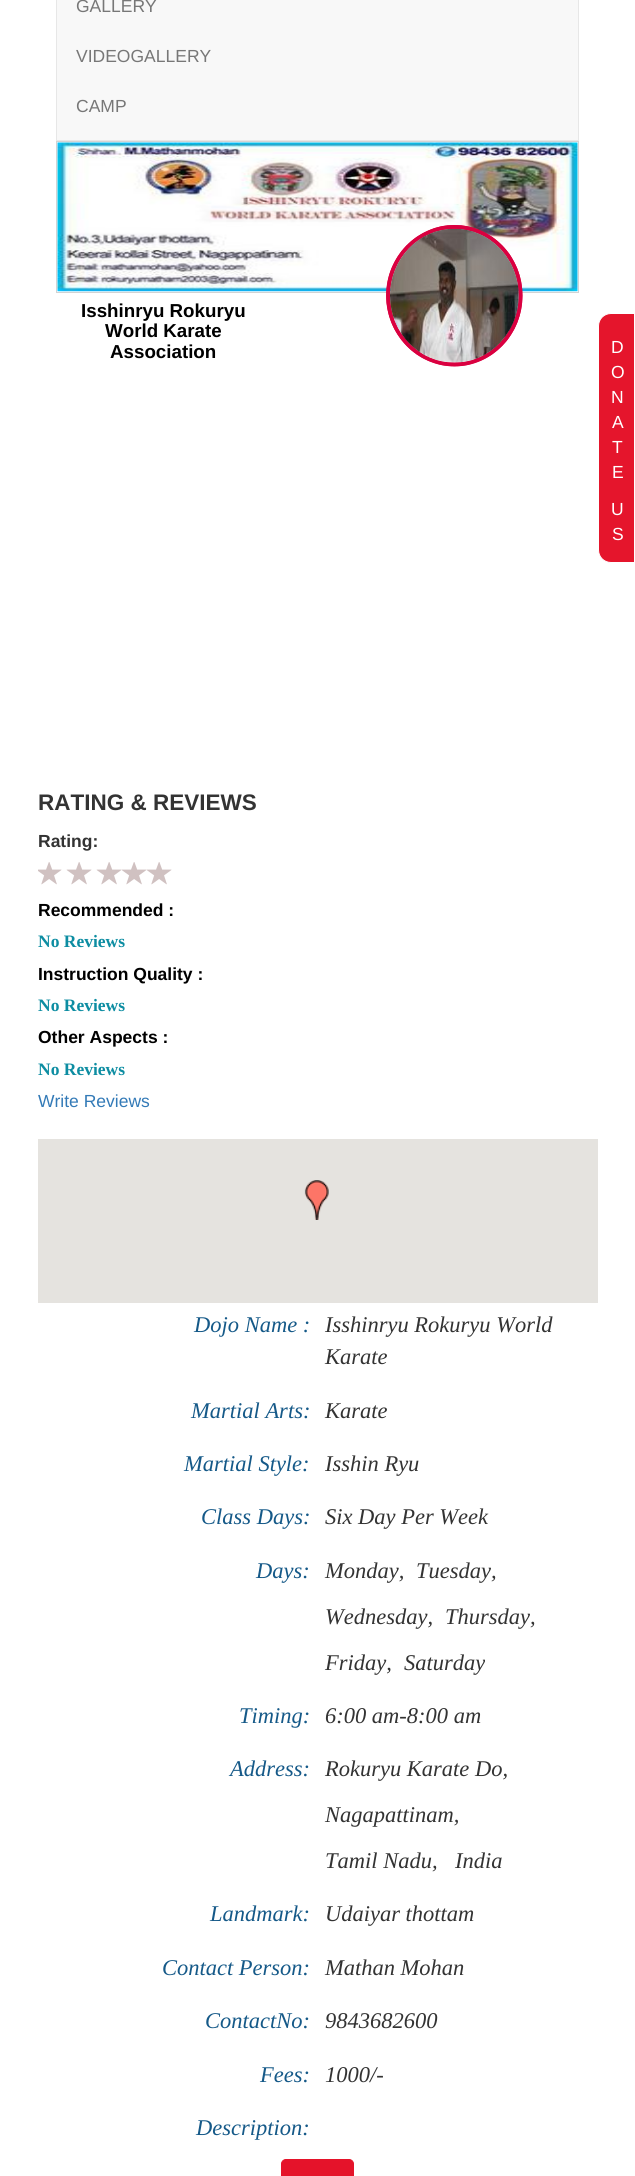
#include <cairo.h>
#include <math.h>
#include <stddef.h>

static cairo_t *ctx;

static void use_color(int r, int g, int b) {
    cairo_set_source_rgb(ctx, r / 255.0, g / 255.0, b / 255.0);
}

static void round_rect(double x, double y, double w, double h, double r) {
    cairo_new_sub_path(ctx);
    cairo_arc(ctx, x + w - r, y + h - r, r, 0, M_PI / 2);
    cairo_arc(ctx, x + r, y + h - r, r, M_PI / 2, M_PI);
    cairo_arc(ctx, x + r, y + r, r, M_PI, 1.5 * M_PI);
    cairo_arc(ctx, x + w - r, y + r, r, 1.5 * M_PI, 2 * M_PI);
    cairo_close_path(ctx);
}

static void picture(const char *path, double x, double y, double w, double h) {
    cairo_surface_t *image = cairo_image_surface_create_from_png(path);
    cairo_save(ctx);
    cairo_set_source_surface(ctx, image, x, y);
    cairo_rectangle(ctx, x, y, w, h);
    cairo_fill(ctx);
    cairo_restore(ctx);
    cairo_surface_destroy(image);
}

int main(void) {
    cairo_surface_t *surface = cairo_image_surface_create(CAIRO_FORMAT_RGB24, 635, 2176);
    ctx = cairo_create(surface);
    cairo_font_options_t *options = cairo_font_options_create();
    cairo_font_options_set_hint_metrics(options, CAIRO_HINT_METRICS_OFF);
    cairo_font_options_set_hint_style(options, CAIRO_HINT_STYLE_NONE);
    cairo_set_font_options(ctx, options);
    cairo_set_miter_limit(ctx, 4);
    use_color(255, 255, 255);
    cairo_paint(ctx);
    use_color(248, 248, 248);
    cairo_rectangle(ctx, 56.5, -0.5, 522, 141);
    cairo_fill_preserve(ctx);
    use_color(231, 231, 231);
    cairo_set_line_width(ctx, 1);
    cairo_stroke(ctx);
    cairo_select_font_face(ctx, "Liberation Sans", CAIRO_FONT_SLANT_NORMAL, CAIRO_FONT_WEIGHT_NORMAL);
    cairo_set_font_size(ctx, 17.5);
    use_color(119, 119, 119);
    cairo_move_to(ctx, 76, 12);
    cairo_show_text(ctx, "GALLERY");
    cairo_move_to(ctx, 76, 62);
    cairo_show_text(ctx, "VIDEOGALLERY");
    cairo_move_to(ctx, 76, 112);
    cairo_show_text(ctx, "CAMP");
    cairo_rectangle(ctx, 56.5, 141.5, 522, 151);
    use_color(211, 211, 211);
    cairo_stroke(ctx);
    picture("img1.png", 57, 142, 521, 150);
    cairo_select_font_face(ctx, "Liberation Sans", CAIRO_FONT_SLANT_NORMAL, CAIRO_FONT_WEIGHT_BOLD);
    cairo_set_font_size(ctx, 18.75);
    use_color(0, 0, 0);
    cairo_move_to(ctx, 81, 317);
    cairo_show_text(ctx, "Isshinryu Rokuryu");
    cairo_move_to(ctx, 105, 337);
    cairo_show_text(ctx, "World Karate");
    cairo_move_to(ctx, 110, 358);
    cairo_show_text(ctx, "Association");
    cairo_new_path(ctx);
    cairo_move_to(ctx, 454.5, 227);
    cairo_curve_to(ctx, 491, 227, 520.5, 257.5, 520.5, 295.5);
    cairo_curve_to(ctx, 520.5, 333.5, 491, 364.5, 454.5, 364.5);
    cairo_curve_to(ctx, 418, 364.5, 388, 333.5, 388, 295.5);
    cairo_curve_to(ctx, 388, 257.5, 418, 227, 454.5, 227);
    cairo_close_path(ctx);
    use_color(218, 0, 64);
    cairo_set_line_width(ctx, 3.8);
    cairo_stroke(ctx);
    picture("img2.png", 386, 225, 137, 142);
    cairo_set_font_size(ctx, 22.5);
    use_color(51, 51, 51);
    cairo_move_to(ctx, 38, 810);
    cairo_show_text(ctx, "RATING & REVIEWS");
    cairo_set_font_size(ctx, 17.5);
    cairo_move_to(ctx, 38, 847);
    cairo_show_text(ctx, "Rating:");
    picture("img3.png", 38, 862, 24, 23);
    picture("img4.png", 66, 862, 26, 23);
    picture("img4.png", 96, 862, 26, 23);
    picture("img5.png", 121, 862, 26, 23);
    picture("img5.png", 146, 862, 26, 23);
    use_color(0, 0, 0);
    cairo_move_to(ctx, 38, 916);
    cairo_show_text(ctx, "Recommended :");
    cairo_select_font_face(ctx, "Liberation Serif", CAIRO_FONT_SLANT_NORMAL, CAIRO_FONT_WEIGHT_BOLD);
    use_color(13, 141, 162);
    cairo_move_to(ctx, 38, 947);
    cairo_show_text(ctx, "No Reviews");
    cairo_select_font_face(ctx, "Liberation Sans", CAIRO_FONT_SLANT_NORMAL, CAIRO_FONT_WEIGHT_BOLD);
    use_color(0, 0, 0);
    cairo_move_to(ctx, 38, 980);
    cairo_show_text(ctx, "Instruction Quality :");
    cairo_select_font_face(ctx, "Liberation Serif", CAIRO_FONT_SLANT_NORMAL, CAIRO_FONT_WEIGHT_BOLD);
    use_color(13, 141, 162);
    cairo_move_to(ctx, 38, 1011);
    cairo_show_text(ctx, "No Reviews");
    cairo_select_font_face(ctx, "Liberation Sans", CAIRO_FONT_SLANT_NORMAL, CAIRO_FONT_WEIGHT_BOLD);
    use_color(0, 0, 0);
    cairo_move_to(ctx, 38, 1043);
    cairo_show_text(ctx, "Other Aspects :");
    cairo_select_font_face(ctx, "Liberation Serif", CAIRO_FONT_SLANT_NORMAL, CAIRO_FONT_WEIGHT_BOLD);
    use_color(13, 141, 162);
    cairo_move_to(ctx, 38, 1075);
    cairo_show_text(ctx, "No Reviews");
    cairo_select_font_face(ctx, "Liberation Sans", CAIRO_FONT_SLANT_NORMAL, CAIRO_FONT_WEIGHT_NORMAL);
    use_color(51, 122, 183);
    cairo_move_to(ctx, 38, 1107);
    cairo_show_text(ctx, "Write Reviews");
    use_color(229, 227, 223);
    cairo_rectangle(ctx, 38, 1139, 560, 164);
    cairo_fill(ctx);
    picture("img6.png", 304, 1180, 25, 40);
    cairo_select_font_face(ctx, "Liberation Serif", CAIRO_FONT_SLANT_ITALIC, CAIRO_FONT_WEIGHT_NORMAL);
    cairo_set_font_size(ctx, 22.5);
    use_color(21, 89, 136);
    cairo_move_to(ctx, 194, 1332);
    cairo_show_text(ctx, "Dojo Name :");
    use_color(51, 51, 51);
    cairo_move_to(ctx, 325, 1332);
    cairo_show_text(ctx, "Isshinryu Rokuryu World");
    cairo_move_to(ctx, 325, 1364);
    cairo_show_text(ctx, "Karate");
    use_color(21, 89, 136);
    cairo_move_to(ctx, 191, 1418);
    cairo_show_text(ctx, "Martial Arts:");
    use_color(51, 51, 51);
    cairo_move_to(ctx, 325, 1418);
    cairo_show_text(ctx, "Karate");
    use_color(21, 89, 136);
    cairo_move_to(ctx, 184, 1471);
    cairo_show_text(ctx, "Martial Style:");
    use_color(51, 51, 51);
    cairo_move_to(ctx, 325, 1471);
    cairo_show_text(ctx, "Isshin Ryu");
    use_color(21, 89, 136);
    cairo_move_to(ctx, 201, 1524);
    cairo_show_text(ctx, "Class Days:");
    use_color(51, 51, 51);
    cairo_move_to(ctx, 325, 1524);
    cairo_show_text(ctx, "Six Day Per Week");
    use_color(21, 89, 136);
    cairo_move_to(ctx, 256, 1578);
    cairo_show_text(ctx, "Days:");
    use_color(51, 51, 51);
    cairo_move_to(ctx, 325, 1578);
    cairo_show_text(ctx, "Monday,");
    cairo_move_to(ctx, 416, 1578);
    cairo_show_text(ctx, "Tuesday,");
    cairo_move_to(ctx, 325, 1624);
    cairo_show_text(ctx, "Wednesday,");
    cairo_move_to(ctx, 445, 1624);
    cairo_show_text(ctx, "Thursday,");
    cairo_move_to(ctx, 325, 1670);
    cairo_show_text(ctx, "Friday,");
    cairo_move_to(ctx, 404, 1670);
    cairo_show_text(ctx, "Saturday");
    use_color(21, 89, 136);
    cairo_move_to(ctx, 239, 1723);
    cairo_show_text(ctx, "Timing:");
    use_color(51, 51, 51);
    cairo_move_to(ctx, 325, 1723);
    cairo_show_text(ctx, "6:00 am-8:00 am");
    use_color(21, 89, 136);
    cairo_move_to(ctx, 230, 1776);
    cairo_show_text(ctx, "Address:");
    use_color(51, 51, 51);
    cairo_move_to(ctx, 325, 1776);
    cairo_show_text(ctx, "Rokuryu Karate Do,");
    cairo_move_to(ctx, 325, 1822);
    cairo_show_text(ctx, "Nagapattinam,");
    cairo_move_to(ctx, 325, 1868);
    cairo_show_text(ctx, "Tamil Nadu,");
    cairo_move_to(ctx, 455, 1868);
    cairo_show_text(ctx, "India");
    use_color(21, 89, 136);
    cairo_move_to(ctx, 210, 1921);
    cairo_show_text(ctx, "Landmark:");
    use_color(51, 51, 51);
    cairo_move_to(ctx, 325, 1921);
    cairo_show_text(ctx, "Udaiyar thottam");
    use_color(21, 89, 136);
    cairo_move_to(ctx, 162, 1975);
    cairo_show_text(ctx, "Contact Person:");
    use_color(51, 51, 51);
    cairo_move_to(ctx, 325, 1975);
    cairo_show_text(ctx, "Mathan Mohan");
    use_color(21, 89, 136);
    cairo_move_to(ctx, 205, 2028);
    cairo_show_text(ctx, "ContactNo:");
    use_color(51, 51, 51);
    cairo_move_to(ctx, 325, 2028);
    cairo_show_text(ctx, "9843682600");
    use_color(21, 89, 136);
    cairo_move_to(ctx, 260, 2082);
    cairo_show_text(ctx, "Fees:");
    use_color(51, 51, 51);
    cairo_move_to(ctx, 325, 2082);
    cairo_show_text(ctx, "1000/-");
    use_color(21, 89, 136);
    cairo_move_to(ctx, 196, 2135);
    cairo_show_text(ctx, "Description:");
    use_color(229, 19, 42);
    round_rect(281.5, 2159.5, 72, 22, 4.5);
    cairo_fill_preserve(ctx);
    cairo_set_line_width(ctx, 1);
    cairo_stroke(ctx);
    use_color(229, 21, 44);
    cairo_new_path(ctx);
    cairo_move_to(ctx, 611, 313.5);
    cairo_line_to(ctx, 634.5, 313.5);
    cairo_line_to(ctx, 634.5, 562.5);
    cairo_line_to(ctx, 611, 562.5);
    cairo_curve_to(ctx, 604, 562.5, 598.5, 557, 598.5, 550);
    cairo_line_to(ctx, 598.5, 326);
    cairo_curve_to(ctx, 598.5, 319, 604, 313.5, 611, 313.5);
    cairo_close_path(ctx);
    cairo_fill_preserve(ctx);
    use_color(255, 255, 255);
    cairo_stroke(ctx);
    cairo_select_font_face(ctx, "Liberation Sans", CAIRO_FONT_SLANT_NORMAL, CAIRO_FONT_WEIGHT_NORMAL);
    cairo_set_font_size(ctx, 17.5);
    cairo_move_to(ctx, 611, 353);
    cairo_show_text(ctx, "D");
    cairo_move_to(ctx, 611, 378);
    cairo_show_text(ctx, "O");
    cairo_move_to(ctx, 611, 403);
    cairo_show_text(ctx, "N");
    cairo_move_to(ctx, 612, 428);
    cairo_show_text(ctx, "A");
    cairo_move_to(ctx, 612, 453);
    cairo_show_text(ctx, "T");
    cairo_move_to(ctx, 612, 478);
    cairo_show_text(ctx, "E");
    cairo_move_to(ctx, 611, 515);
    cairo_show_text(ctx, "U");
    cairo_move_to(ctx, 612, 540);
    cairo_show_text(ctx, "S");
    cairo_surface_write_to_png(surface, "result.png");
    cairo_font_options_destroy(options);
    cairo_destroy(ctx);
    cairo_surface_destroy(surface);
    return 0;
}
